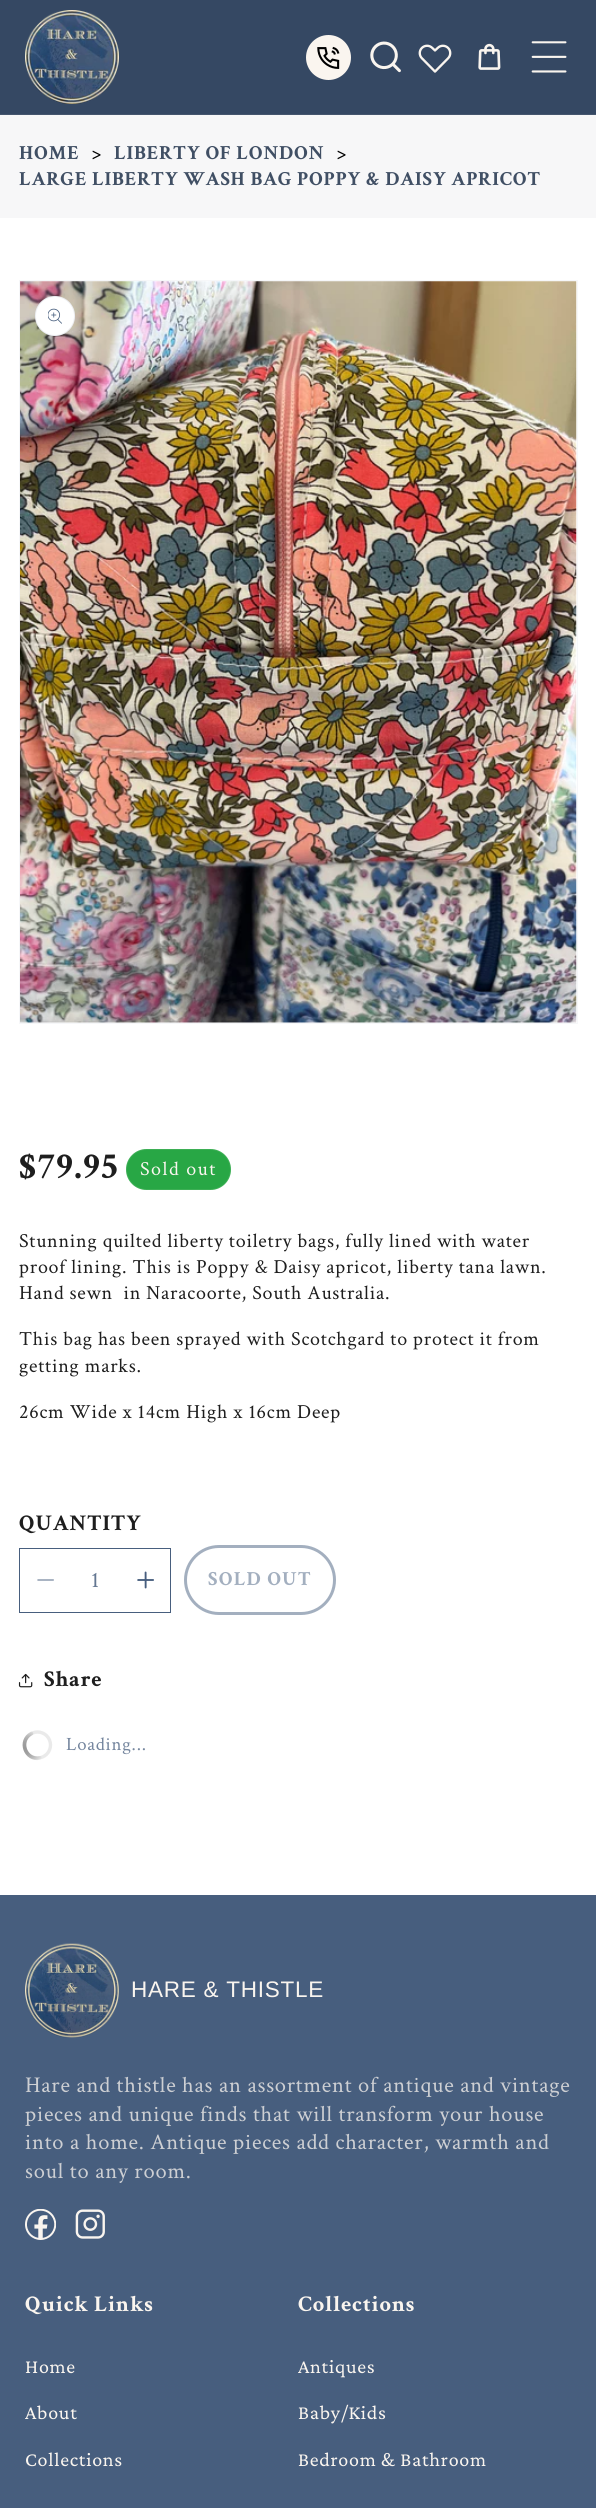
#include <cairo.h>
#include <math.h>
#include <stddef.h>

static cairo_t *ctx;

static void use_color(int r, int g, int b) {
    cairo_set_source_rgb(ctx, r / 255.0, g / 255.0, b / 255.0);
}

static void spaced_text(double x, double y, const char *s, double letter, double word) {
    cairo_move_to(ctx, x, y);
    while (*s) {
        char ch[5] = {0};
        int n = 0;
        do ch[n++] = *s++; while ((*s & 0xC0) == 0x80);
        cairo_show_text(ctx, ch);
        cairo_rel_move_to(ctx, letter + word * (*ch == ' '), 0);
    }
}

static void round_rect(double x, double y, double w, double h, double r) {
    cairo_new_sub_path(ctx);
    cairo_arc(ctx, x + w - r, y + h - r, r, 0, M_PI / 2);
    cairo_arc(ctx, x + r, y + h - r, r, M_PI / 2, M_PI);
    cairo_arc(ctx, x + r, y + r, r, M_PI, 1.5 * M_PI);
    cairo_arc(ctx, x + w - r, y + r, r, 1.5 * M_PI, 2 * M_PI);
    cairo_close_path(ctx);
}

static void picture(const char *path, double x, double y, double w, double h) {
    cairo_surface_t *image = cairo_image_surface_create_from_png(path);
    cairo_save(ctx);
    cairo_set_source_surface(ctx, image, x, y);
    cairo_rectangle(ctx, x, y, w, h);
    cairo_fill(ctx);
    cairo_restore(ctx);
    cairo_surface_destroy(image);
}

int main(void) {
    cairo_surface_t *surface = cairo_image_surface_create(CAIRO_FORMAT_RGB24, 596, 2508);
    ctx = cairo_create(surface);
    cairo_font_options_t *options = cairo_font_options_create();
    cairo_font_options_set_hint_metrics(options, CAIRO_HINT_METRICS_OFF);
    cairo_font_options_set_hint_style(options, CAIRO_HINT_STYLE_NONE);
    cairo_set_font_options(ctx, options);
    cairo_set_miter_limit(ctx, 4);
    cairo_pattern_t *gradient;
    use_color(255, 255, 255);
    cairo_paint(ctx);
    use_color(53, 72, 99);
    cairo_rectangle(ctx, 0, 0, 596, 114);
    cairo_fill(ctx);
    use_color(69, 86, 110);
    cairo_rectangle(ctx, 0, 114, 596, 1);
    cairo_fill(ctx);
    picture("img1.png", 25, 10, 94, 94);
    use_color(250, 245, 239);
    cairo_arc(ctx, 328.5, 57.5, 22.5, 0, 2 * M_PI);
    cairo_fill(ctx);
    picture("img2.png", 317, 46, 23, 23);
    picture("img3.png", 370, 41, 31, 32);
    picture("img4.png", 418, 44, 34, 29);
    picture("img5.png", 478, 43, 23, 27);
    picture("img6.png", 531, 41, 36, 32);
    use_color(247, 247, 248);
    cairo_rectangle(ctx, 0, 115, 596, 103);
    cairo_fill(ctx);
    cairo_select_font_face(ctx, "Crimson Text", CAIRO_FONT_SLANT_NORMAL, CAIRO_FONT_WEIGHT_BOLD);
    cairo_set_font_size(ctx, 20);
    use_color(64, 79, 100);
    spaced_text(19, 159, "HOME", 0.75, 0);
    use_color(0, 0, 0);
    spaced_text(92, 159, ">", 0.75, 0);
    use_color(64, 79, 100);
    spaced_text(114, 159, "LIBERTY OF LONDON", 0.75, 0);
    use_color(0, 0, 0);
    spaced_text(337, 159, ">", 0.75, 0);
    use_color(64, 79, 100);
    spaced_text(19, 185, "LARGE LIBERTY WASH BAG POPPY & DAISY APRICOT", 0.75, 0);
    cairo_rectangle(ctx, 19.5, 280.5, 558, 743);
    use_color(246, 247, 249);
    cairo_set_line_width(ctx, 1);
    cairo_stroke(ctx);
    picture("img7.png", 20, 281, 557, 742);
    use_color(255, 255, 255);
    cairo_arc(ctx, 55, 316, 20, 0, 2 * M_PI);
    cairo_fill(ctx);
    cairo_arc(ctx, 55, 316, 19.5, 0, 2 * M_PI);
    cairo_set_source_rgba(ctx, 0.278, 0.369, 0.494, 0.1);
    cairo_stroke(ctx);
    picture("img8.png", 48, 308, 14, 16);
    cairo_set_font_size(ctx, 37.5);
    use_color(30, 30, 30);
    spaced_text(19, 1178, "$79.95", 1.5, 0);
    use_color(40, 167, 69);
    round_rect(126, 1149, 105, 41, 20.5);
    cairo_fill(ctx);
    round_rect(126.5, 1149.5, 104, 40, 20);
    cairo_set_source_rgba(ctx, 0.98, 0.961, 0.937, 0.1);
    cairo_stroke(ctx);
    cairo_select_font_face(ctx, "Crimson Text", CAIRO_FONT_SLANT_NORMAL, CAIRO_FONT_WEIGHT_NORMAL);
    cairo_set_font_size(ctx, 20);
    use_color(250, 245, 239);
    spaced_text(140, 1175, "Sold out", 1.5, 0);
    use_color(30, 30, 30);
    spaced_text(19, 1247, "Stunning quilted liberty toiletry bags, fully lined with water", 0.75, 0);
    spaced_text(19, 1273, "proof lining. This is Poppy & Daisy apricot, liberty tana lawn.", 0.75, 0);
    spaced_text(19, 1299, "Hand sewn  in Naracoorte, South Australia.", 0.75, 0);
    spaced_text(19, 1345, "This bag has been sprayed with Scotchgard to protect it from", 0.75, 0);
    spaced_text(19, 1372, "getting marks.", 0.75, 0);
    spaced_text(19, 1418, "26cm Wide x 14cm High x 16cm Deep", 0.75, 0);
    cairo_select_font_face(ctx, "Crimson Text", CAIRO_FONT_SLANT_NORMAL, CAIRO_FONT_WEIGHT_BOLD);
    cairo_set_font_size(ctx, 22.5);
    spaced_text(19, 1530, "QUANTITY", 0.75, 0);
    picture("img9.png", 37, 1579, 17, 2);
    picture("img10.png", 137, 1571, 17, 18);
    cairo_rectangle(ctx, 19.5, 1548.5, 151, 64);
    use_color(71, 94, 126);
    cairo_stroke(ctx);
    cairo_select_font_face(ctx, "Crimson Text", CAIRO_FONT_SLANT_NORMAL, CAIRO_FONT_WEIGHT_NORMAL);
    use_color(99, 118, 145);
    cairo_move_to(ctx, 91, 1587);
    cairo_show_text(ctx, "1");
    round_rect(185.5, 1546.5, 149, 67, 33.5);
    use_color(163, 175, 191);
    cairo_set_line_width(ctx, 3);
    cairo_stroke(ctx);
    cairo_select_font_face(ctx, "Crimson Text", CAIRO_FONT_SLANT_NORMAL, CAIRO_FONT_WEIGHT_BOLD);
    cairo_set_font_size(ctx, 20);
    spaced_text(208, 1585, "SOLD OUT", 1.25, 0);
    picture("img11.png", 18, 1673, 15, 15);
    cairo_set_font_size(ctx, 22.5);
    use_color(30, 30, 30);
    spaced_text(44, 1686, "Share", 0.75, 0);
    cairo_new_path(ctx);
    cairo_move_to(ctx, 40, 1758);
    cairo_curve_to(ctx, 25.5, 1761, 18, 1740.5, 31.5, 1733.5);
    gradient = cairo_pattern_create_radial(25, 1748, 0, 25, 1748, 20);
    cairo_pattern_add_color_stop_rgba(gradient, 0, 0.6, 0.6, 0.6, 1);
    cairo_pattern_add_color_stop_rgba(gradient, 0.3, 0.639, 0.639, 0.639, 1);
    cairo_pattern_add_color_stop_rgba(gradient, 0.6, 0.761, 0.761, 0.761, 1);
    cairo_pattern_add_color_stop_rgba(gradient, 0.8, 0.878, 0.878, 0.878, 1);
    cairo_pattern_add_color_stop_rgba(gradient, 1, 1, 1, 1, 1);
    cairo_set_source(ctx, gradient);
    cairo_pattern_destroy(gradient);
    cairo_set_line_width(ctx, 3.7);
    cairo_set_line_cap(ctx, CAIRO_LINE_CAP_ROUND);
    cairo_stroke(ctx);
    cairo_arc(ctx, 37.5, 1745, 13, 0, 2 * M_PI);
    cairo_set_source_rgba(ctx, 0.6, 0.6, 0.6, 0.2);
    cairo_set_line_width(ctx, 3.4);
    cairo_set_line_cap(ctx, CAIRO_LINE_CAP_BUTT);
    cairo_stroke(ctx);
    cairo_select_font_face(ctx, "Crimson Text", CAIRO_FONT_SLANT_NORMAL, CAIRO_FONT_WEIGHT_NORMAL);
    cairo_set_font_size(ctx, 18.75);
    use_color(117, 134, 158);
    spaced_text(66, 1750, "Loading...", 0.75, 0);
    use_color(71, 94, 126);
    cairo_rectangle(ctx, 0, 1895, 596, 613);
    cairo_fill(ctx);
    picture("img12.png", 25, 1943, 94, 95);
    cairo_select_font_face(ctx, "Liberation Sans", CAIRO_FONT_SLANT_NORMAL, CAIRO_FONT_WEIGHT_NORMAL);
    cairo_set_font_size(ctx, 22.5);
    use_color(250, 245, 239);
    spaced_text(131, 1997, "HARE & THISTLE", 0.75, 0);
    cairo_select_font_face(ctx, "Crimson Text", CAIRO_FONT_SLANT_NORMAL, CAIRO_FONT_WEIGHT_NORMAL);
    use_color(205, 207, 211);
    spaced_text(25, 2092, "Hare and thistle has an assortment of antique and vintage", 0.75, 0);
    spaced_text(25, 2121, "pieces and unique finds that will transform your house", 0.75, 0);
    spaced_text(25, 2149, "into a home. Antique pieces add character, warmth and", 0.75, 0);
    spaced_text(25, 2178, "soul to any room.", 0.75, 0);
    picture("img13.png", 25, 2209, 31, 31);
    picture("img14.png", 75, 2209, 30, 30);
    cairo_select_font_face(ctx, "Crimson Text", CAIRO_FONT_SLANT_NORMAL, CAIRO_FONT_WEIGHT_BOLD);
    use_color(250, 245, 239);
    spaced_text(25, 2311, "Quick Links", 0.75, 0);
    cairo_select_font_face(ctx, "Crimson Pro", CAIRO_FONT_SLANT_NORMAL, CAIRO_FONT_WEIGHT_NORMAL);
    cairo_set_font_size(ctx, 20);
    spaced_text(25, 2373, "Home", 0.75, 0);
    spaced_text(25, 2419, "About", 0.75, 0);
    spaced_text(25, 2466, "Collections", 0.75, 0);
    cairo_select_font_face(ctx, "Crimson Text", CAIRO_FONT_SLANT_NORMAL, CAIRO_FONT_WEIGHT_BOLD);
    cairo_set_font_size(ctx, 22.5);
    spaced_text(298, 2311, "Collections", 0.75, 0);
    cairo_select_font_face(ctx, "Crimson Pro", CAIRO_FONT_SLANT_NORMAL, CAIRO_FONT_WEIGHT_NORMAL);
    cairo_set_font_size(ctx, 20);
    spaced_text(298, 2373, "Antiques", 0.75, 0);
    spaced_text(298, 2419, "Baby/Kids", 0.75, 0);
    spaced_text(298, 2466, "Bedroom & Bathroom", 0.75, 0);
    cairo_surface_write_to_png(surface, "result.png");
    cairo_font_options_destroy(options);
    cairo_destroy(ctx);
    cairo_surface_destroy(surface);
    return 0;
}
